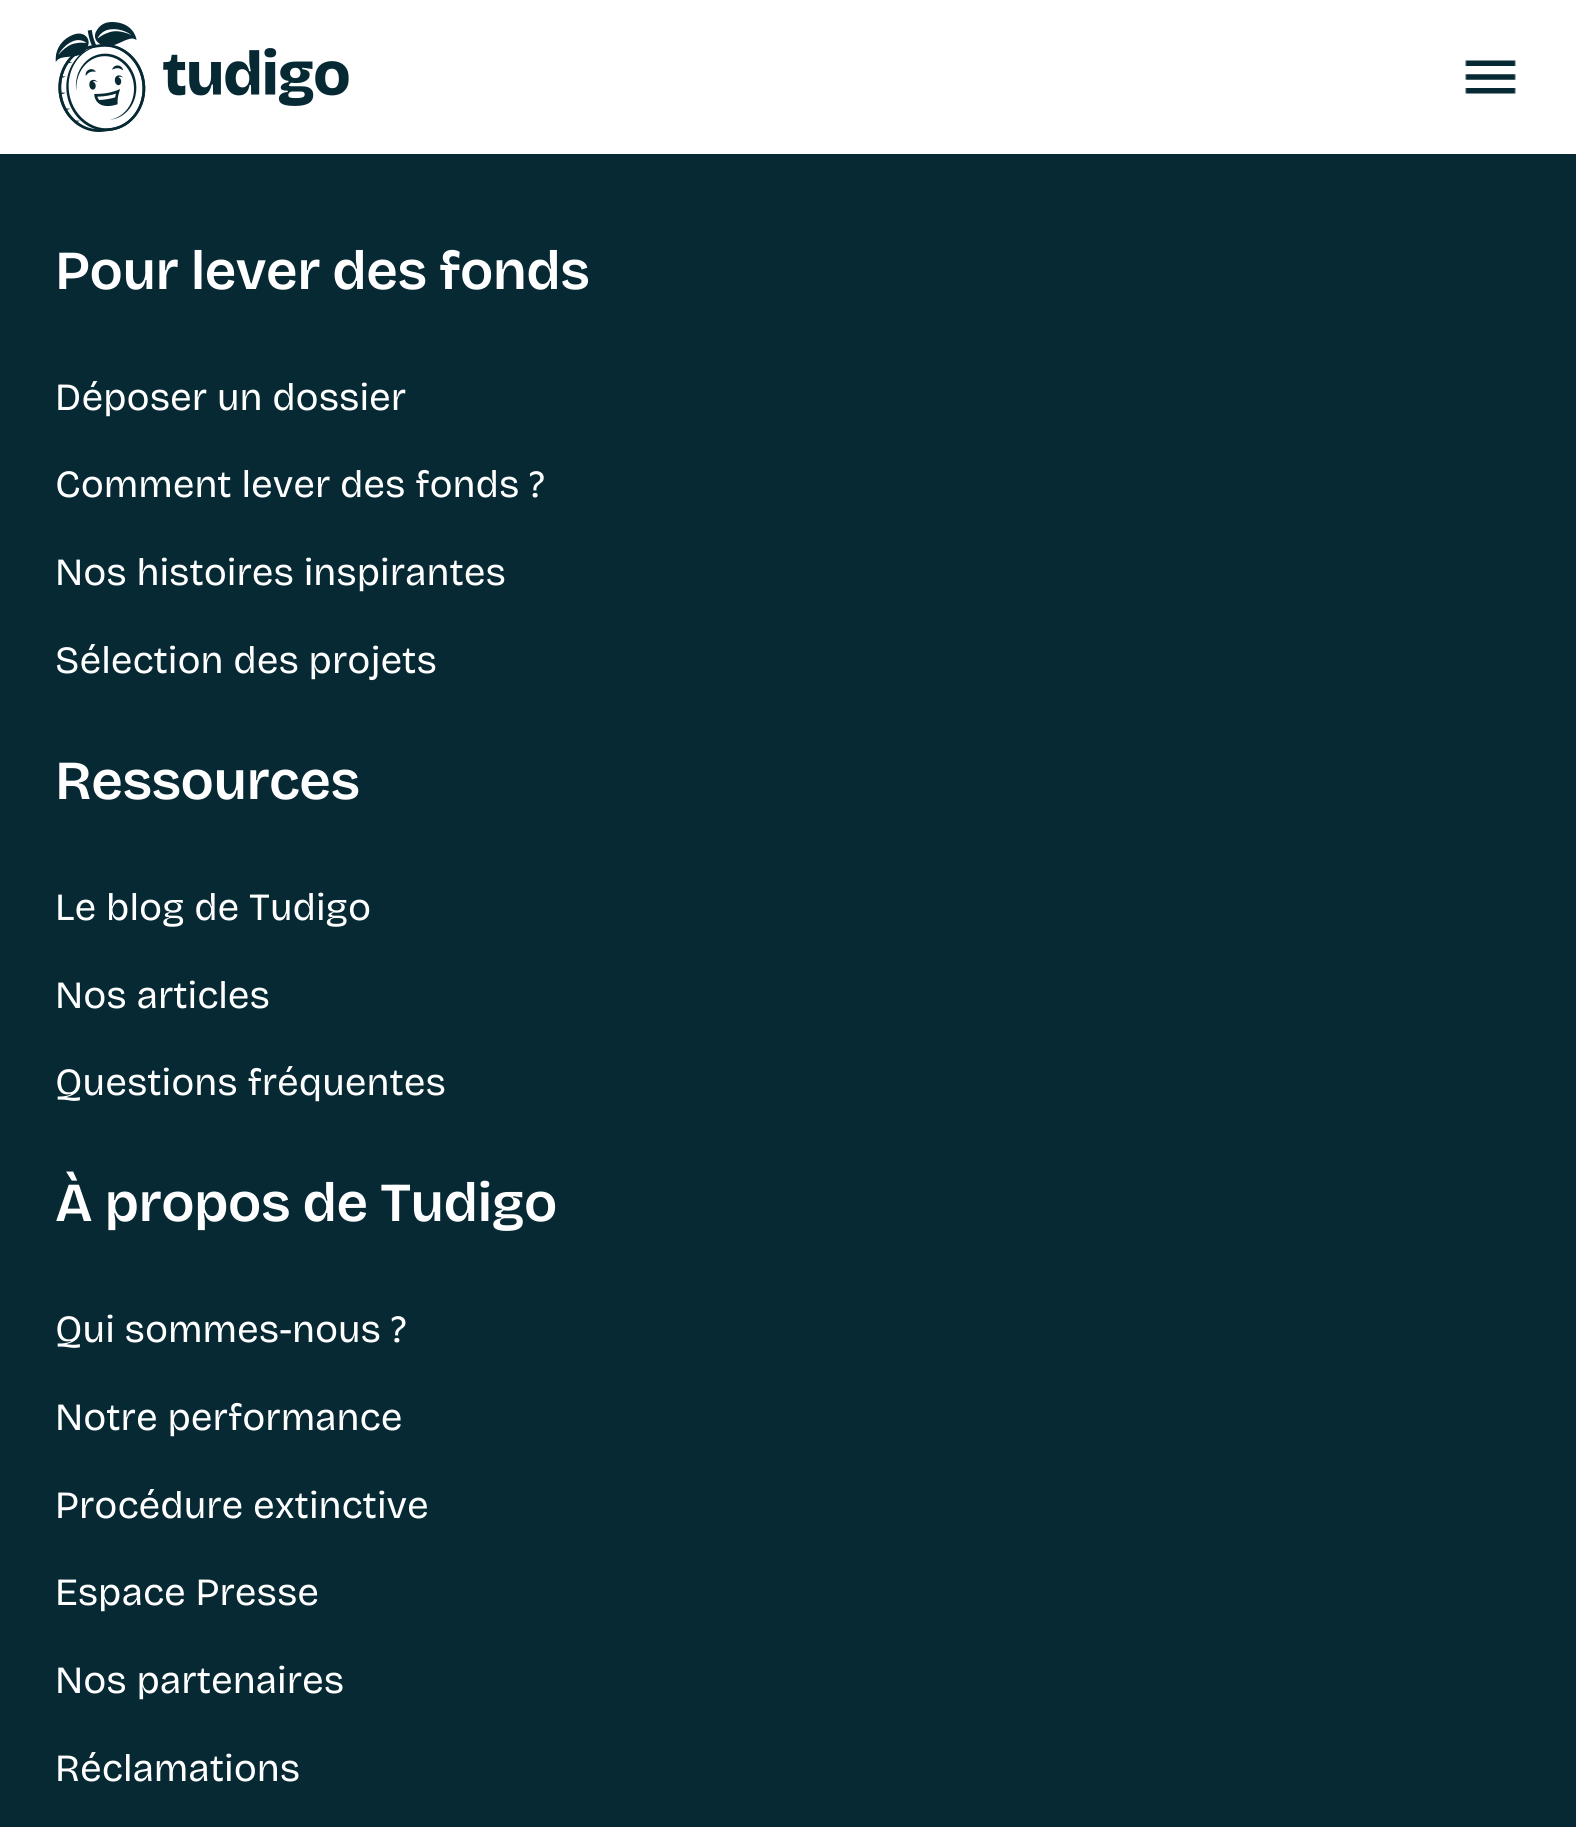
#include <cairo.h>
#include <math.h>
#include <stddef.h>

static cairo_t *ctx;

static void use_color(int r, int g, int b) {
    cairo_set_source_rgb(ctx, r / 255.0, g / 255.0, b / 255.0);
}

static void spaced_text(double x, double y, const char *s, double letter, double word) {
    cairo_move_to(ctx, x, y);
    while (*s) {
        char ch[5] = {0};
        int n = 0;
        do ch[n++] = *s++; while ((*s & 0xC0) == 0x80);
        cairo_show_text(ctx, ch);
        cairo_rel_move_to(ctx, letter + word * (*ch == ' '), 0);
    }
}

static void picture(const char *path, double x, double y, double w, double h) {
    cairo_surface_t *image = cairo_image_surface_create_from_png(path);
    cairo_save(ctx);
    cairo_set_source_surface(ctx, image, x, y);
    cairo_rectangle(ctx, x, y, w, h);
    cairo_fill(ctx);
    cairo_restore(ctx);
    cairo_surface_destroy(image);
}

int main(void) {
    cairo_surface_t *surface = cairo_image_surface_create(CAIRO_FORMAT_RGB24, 1576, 1827);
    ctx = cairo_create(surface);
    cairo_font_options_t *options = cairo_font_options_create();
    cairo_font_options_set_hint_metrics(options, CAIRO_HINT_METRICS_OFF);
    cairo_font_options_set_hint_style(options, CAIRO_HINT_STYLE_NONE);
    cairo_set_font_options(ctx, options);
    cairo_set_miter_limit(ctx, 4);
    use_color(6, 41, 52);
    cairo_paint(ctx);
    use_color(255, 255, 255);
    cairo_rectangle(ctx, 0, 0, 1576, 154);
    cairo_fill(ctx);
    picture("img1.png", 55, 22, 294, 110);
    picture("img2.png", 1465, 60, 51, 34);
    cairo_select_font_face(ctx, "Bricolage Grotesque SemiBold", CAIRO_FONT_SLANT_NORMAL, CAIRO_FONT_WEIGHT_NORMAL);
    cairo_set_font_size(ctx, 55);
    spaced_text(55, 289, "Pour lever des fonds", -0.55, 0);
    cairo_select_font_face(ctx, "Bricolage Grotesque", CAIRO_FONT_SLANT_NORMAL, CAIRO_FONT_WEIGHT_NORMAL);
    cairo_set_font_size(ctx, 38.5);
    cairo_move_to(ctx, 55, 410);
    cairo_show_text(ctx, "Déposer un dossier");
    cairo_move_to(ctx, 55, 497);
    cairo_show_text(ctx, "Comment lever des fonds ?");
    cairo_move_to(ctx, 55, 585);
    cairo_show_text(ctx, "Nos histoires inspirantes");
    cairo_move_to(ctx, 55, 673);
    cairo_show_text(ctx, "Sélection des projets");
    cairo_select_font_face(ctx, "Bricolage Grotesque SemiBold", CAIRO_FONT_SLANT_NORMAL, CAIRO_FONT_WEIGHT_NORMAL);
    cairo_set_font_size(ctx, 55);
    spaced_text(55, 799, "Ressources", -0.55, 0);
    cairo_select_font_face(ctx, "Bricolage Grotesque", CAIRO_FONT_SLANT_NORMAL, CAIRO_FONT_WEIGHT_NORMAL);
    cairo_set_font_size(ctx, 38.5);
    cairo_move_to(ctx, 55, 920);
    cairo_show_text(ctx, "Le blog de Tudigo");
    cairo_move_to(ctx, 55, 1008);
    cairo_show_text(ctx, "Nos articles");
    cairo_move_to(ctx, 55, 1095);
    cairo_show_text(ctx, "Questions fréquentes");
    cairo_select_font_face(ctx, "Bricolage Grotesque SemiBold", CAIRO_FONT_SLANT_NORMAL, CAIRO_FONT_WEIGHT_NORMAL);
    cairo_set_font_size(ctx, 55);
    spaced_text(55, 1221, "À propos de Tudigo", -0.55, 0);
    cairo_select_font_face(ctx, "Bricolage Grotesque", CAIRO_FONT_SLANT_NORMAL, CAIRO_FONT_WEIGHT_NORMAL);
    cairo_set_font_size(ctx, 38.5);
    cairo_move_to(ctx, 55, 1342);
    cairo_show_text(ctx, "Qui sommes-nous ?");
    cairo_move_to(ctx, 55, 1430);
    cairo_show_text(ctx, "Notre performance");
    cairo_move_to(ctx, 55, 1518);
    cairo_show_text(ctx, "Procédure extinctive");
    cairo_move_to(ctx, 55, 1605);
    cairo_show_text(ctx, "Espace Presse");
    cairo_move_to(ctx, 55, 1693);
    cairo_show_text(ctx, "Nos partenaires");
    cairo_move_to(ctx, 55, 1781);
    cairo_show_text(ctx, "Réclamations");
    cairo_surface_write_to_png(surface, "result.png");
    cairo_font_options_destroy(options);
    cairo_destroy(ctx);
    cairo_surface_destroy(surface);
    return 0;
}
